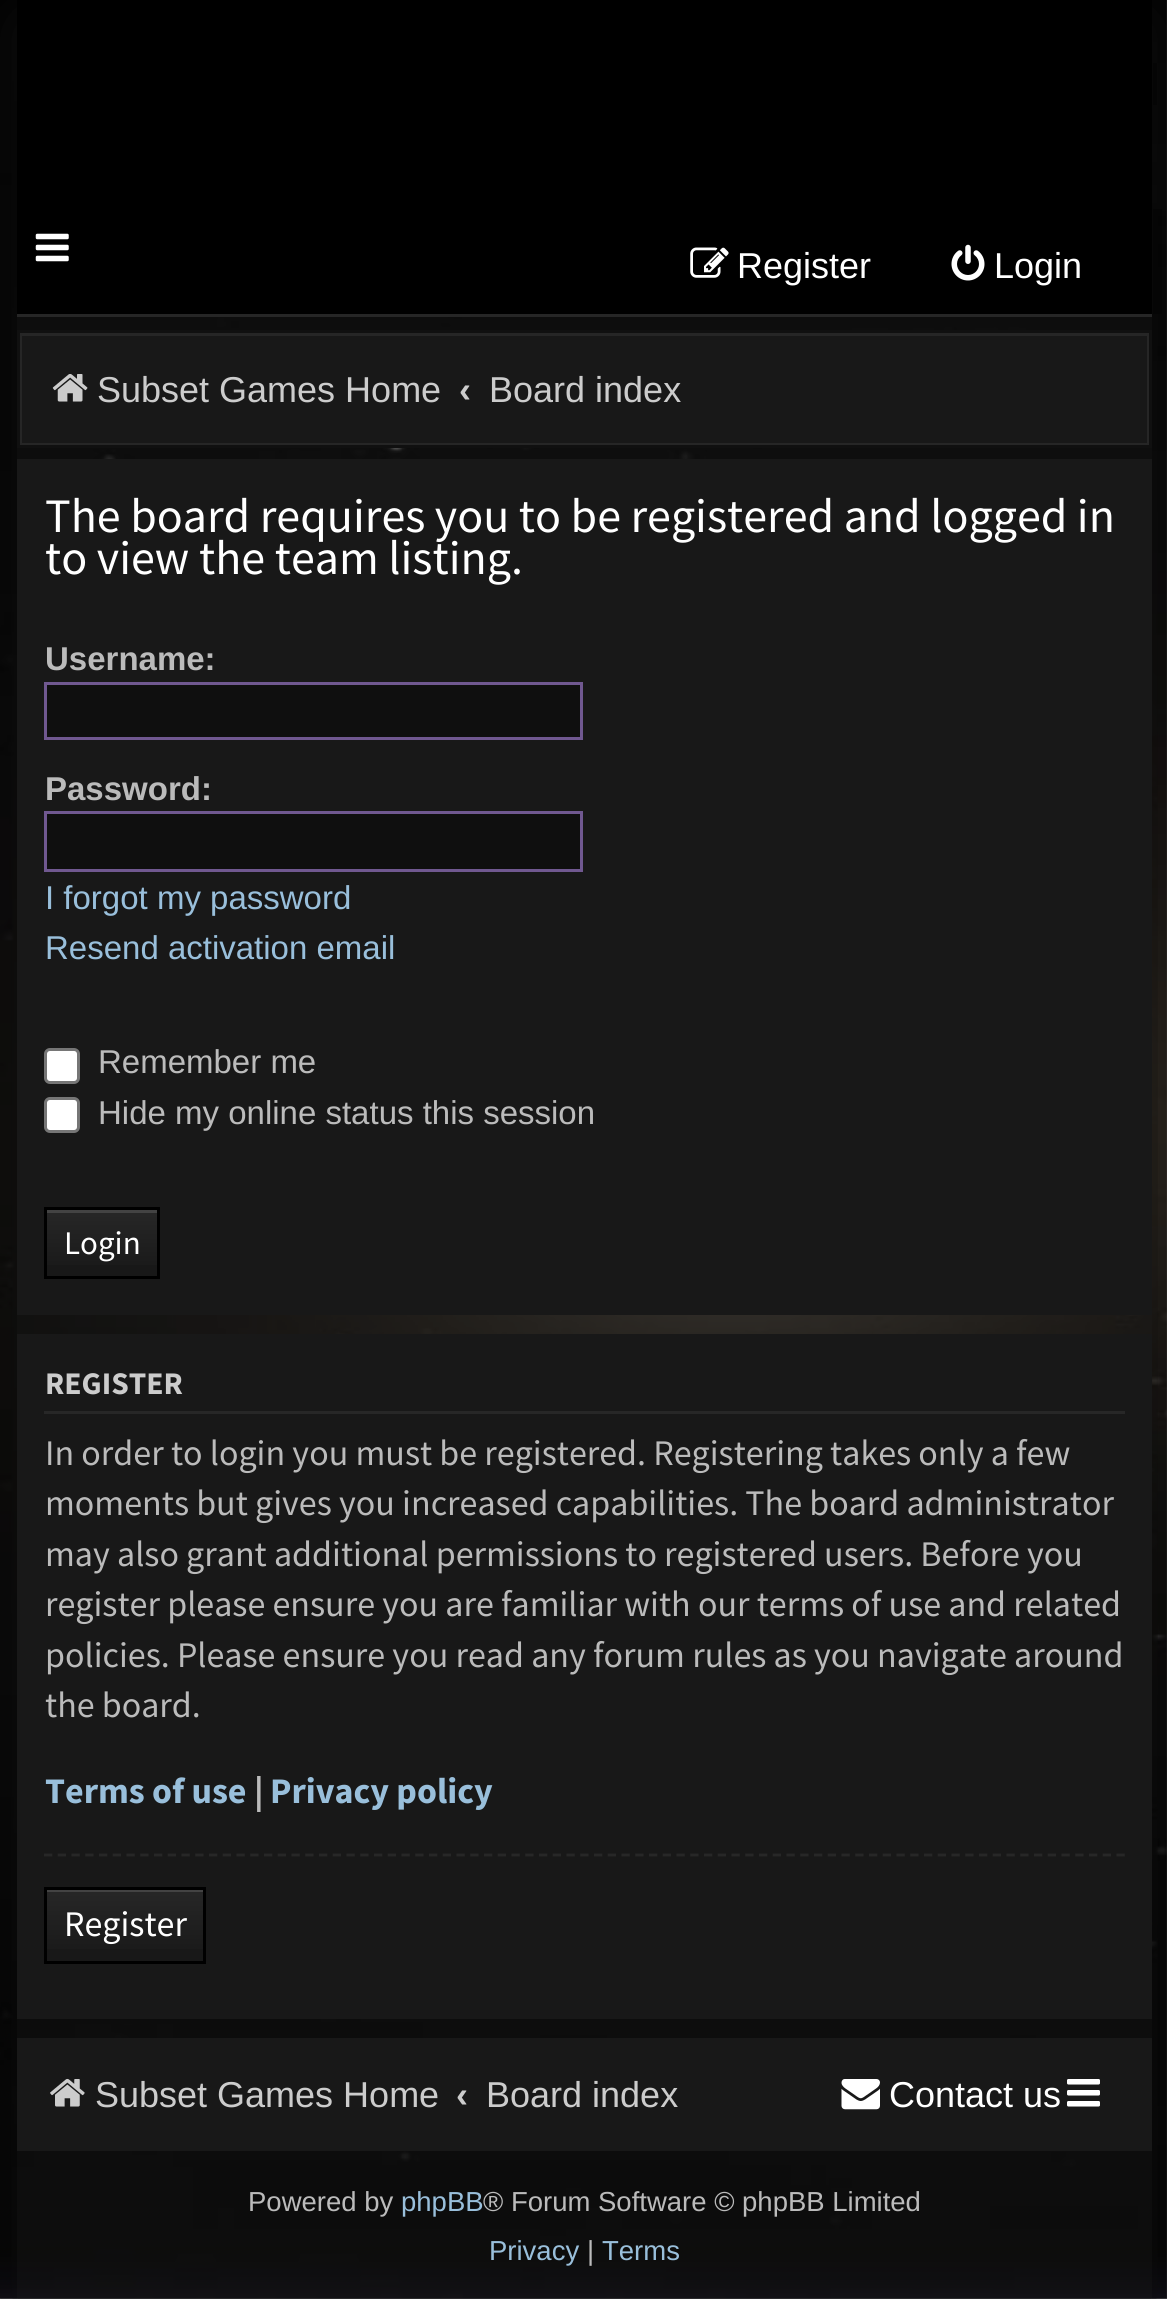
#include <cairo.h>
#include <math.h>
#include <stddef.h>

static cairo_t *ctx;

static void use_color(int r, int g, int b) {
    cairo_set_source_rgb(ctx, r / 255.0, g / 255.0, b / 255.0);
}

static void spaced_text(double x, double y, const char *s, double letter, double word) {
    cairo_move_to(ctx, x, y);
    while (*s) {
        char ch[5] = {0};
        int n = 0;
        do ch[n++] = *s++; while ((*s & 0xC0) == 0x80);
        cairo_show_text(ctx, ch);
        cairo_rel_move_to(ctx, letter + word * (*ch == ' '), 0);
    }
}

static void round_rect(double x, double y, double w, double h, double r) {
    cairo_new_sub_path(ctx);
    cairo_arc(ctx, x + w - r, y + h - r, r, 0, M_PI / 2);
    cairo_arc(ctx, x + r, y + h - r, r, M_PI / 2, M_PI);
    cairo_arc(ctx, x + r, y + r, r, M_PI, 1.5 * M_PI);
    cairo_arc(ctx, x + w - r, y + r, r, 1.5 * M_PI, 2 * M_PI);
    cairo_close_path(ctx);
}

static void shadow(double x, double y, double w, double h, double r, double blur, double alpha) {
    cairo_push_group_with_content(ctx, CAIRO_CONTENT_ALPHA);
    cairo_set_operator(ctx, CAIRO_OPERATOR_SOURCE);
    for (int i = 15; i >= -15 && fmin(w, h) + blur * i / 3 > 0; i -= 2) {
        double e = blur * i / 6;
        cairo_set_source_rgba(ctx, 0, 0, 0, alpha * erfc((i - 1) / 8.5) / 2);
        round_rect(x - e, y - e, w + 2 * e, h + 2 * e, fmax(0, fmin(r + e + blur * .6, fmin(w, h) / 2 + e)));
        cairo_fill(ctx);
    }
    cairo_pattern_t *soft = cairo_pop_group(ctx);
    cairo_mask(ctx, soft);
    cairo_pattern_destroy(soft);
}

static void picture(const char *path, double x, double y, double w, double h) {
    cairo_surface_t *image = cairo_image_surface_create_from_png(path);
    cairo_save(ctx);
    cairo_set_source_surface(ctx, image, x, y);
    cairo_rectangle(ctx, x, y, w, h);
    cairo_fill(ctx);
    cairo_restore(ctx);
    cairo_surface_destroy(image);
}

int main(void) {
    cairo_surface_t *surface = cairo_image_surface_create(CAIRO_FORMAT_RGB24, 1167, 2299);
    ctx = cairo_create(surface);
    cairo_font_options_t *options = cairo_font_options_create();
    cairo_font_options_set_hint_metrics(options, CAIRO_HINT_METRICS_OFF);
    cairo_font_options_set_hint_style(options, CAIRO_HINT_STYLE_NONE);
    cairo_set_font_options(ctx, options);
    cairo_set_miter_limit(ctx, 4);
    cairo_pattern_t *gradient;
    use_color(255, 255, 255);
    cairo_paint(ctx);
    picture("img1.png", 0, 0, 1167, 2299);
    cairo_save(ctx);
    cairo_set_fill_rule(ctx, CAIRO_FILL_RULE_EVEN_ODD);
    cairo_new_path(ctx);
    cairo_move_to(ctx, 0, 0);
    cairo_line_to(ctx, 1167, 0);
    cairo_line_to(ctx, 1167, 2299);
    cairo_line_to(ctx, 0, 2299);
    cairo_close_path(ctx);
    cairo_move_to(ctx, 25, 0);
    cairo_line_to(ctx, 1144, 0);
    cairo_curve_to(ctx, 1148.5, 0, 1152, 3.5, 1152, 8);
    cairo_line_to(ctx, 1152, 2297);
    cairo_curve_to(ctx, 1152, 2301.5, 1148.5, 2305, 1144, 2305);
    cairo_line_to(ctx, 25, 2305);
    cairo_curve_to(ctx, 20.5, 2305, 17, 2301.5, 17, 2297);
    cairo_line_to(ctx, 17, 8);
    cairo_curve_to(ctx, 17, 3.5, 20.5, 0, 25, 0);
    cairo_close_path(ctx);
    cairo_clip(ctx);
    use_color(13, 13, 13);
    shadow(17, 14, 1135, 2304, 8, 34.5, 1);
    cairo_restore(ctx);
    cairo_set_source_rgba(ctx, 0.082, 0.082, 0.082, 0.6);
    round_rect(17, 0, 1135, 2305, 8);
    cairo_fill(ctx);
    use_color(0, 0, 0);
    cairo_rectangle(ctx, 17, 0, 1135, 314);
    cairo_fill(ctx);
    use_color(38, 38, 38);
    cairo_rectangle(ctx, 17, 314, 1135, 3);
    cairo_fill(ctx);
    cairo_set_source_rgba(ctx, 0, 0, 0, 0.35);
    cairo_rectangle(ctx, 1153, 63, 4, 42);
    cairo_fill(ctx);
    picture("img2.png", 35, 233, 34, 29);
    cairo_rectangle(ctx, 1153, 209, 9, 105);
    cairo_fill(ctx);
    picture("img3.png", 690, 247, 39, 31);
    cairo_select_font_face(ctx, "Liberation Sans", CAIRO_FONT_SLANT_NORMAL, CAIRO_FONT_WEIGHT_NORMAL);
    cairo_set_font_size(ctx, 36);
    use_color(255, 255, 255);
    cairo_move_to(ctx, 737, 278);
    cairo_show_text(ctx, "Register");
    picture("img4.png", 951, 244, 34, 37);
    cairo_move_to(ctx, 994, 278);
    cairo_show_text(ctx, "Login");
    use_color(24, 24, 24);
    cairo_rectangle(ctx, 20.5, 334.5, 1128, 110);
    cairo_fill_preserve(ctx);
    use_color(38, 38, 38);
    cairo_set_line_width(ctx, 3);
    cairo_stroke(ctx);
    cairo_rectangle(ctx, 18.5, 331.5, 1132, 115);
    use_color(16, 16, 16);
    cairo_stroke(ctx);
    picture("img5.png", 52, 374, 36, 28);
    use_color(204, 204, 204);
    cairo_move_to(ctx, 97, 402);
    cairo_show_text(ctx, "Subset Games Home");
    cairo_select_font_face(ctx, "Liberation Sans", CAIRO_FONT_SLANT_NORMAL, CAIRO_FONT_WEIGHT_BOLD);
    cairo_move_to(ctx, 459, 402);
    cairo_show_text(ctx, "‹");
    cairo_select_font_face(ctx, "Liberation Sans", CAIRO_FONT_SLANT_NORMAL, CAIRO_FONT_WEIGHT_NORMAL);
    cairo_move_to(ctx, 489, 402);
    cairo_show_text(ctx, "Board index");
    use_color(24, 24, 24);
    cairo_rectangle(ctx, 17, 459, 1135, 856);
    cairo_fill(ctx);
    cairo_select_font_face(ctx, "Source Sans Pro", CAIRO_FONT_SLANT_NORMAL, CAIRO_FONT_WEIGHT_NORMAL);
    cairo_set_font_size(ctx, 48);
    use_color(255, 255, 255);
    spaced_text(45, 532, "The board requires you to be registered and logged in", 0, -0.1);
    cairo_move_to(ctx, 45, 574);
    cairo_show_text(ctx, "to view the team listing.");
    cairo_select_font_face(ctx, "Liberation Sans", CAIRO_FONT_SLANT_NORMAL, CAIRO_FONT_WEIGHT_BOLD);
    cairo_set_font_size(ctx, 33);
    use_color(187, 187, 187);
    cairo_move_to(ctx, 45, 670);
    cairo_show_text(ctx, "Username:");
    use_color(15, 15, 15);
    cairo_rectangle(ctx, 45.5, 683.5, 536, 55);
    cairo_fill_preserve(ctx);
    use_color(112, 88, 144);
    cairo_stroke(ctx);
    use_color(187, 187, 187);
    cairo_move_to(ctx, 45, 800);
    cairo_show_text(ctx, "Password:");
    use_color(15, 15, 15);
    cairo_rectangle(ctx, 45.5, 812.5, 536, 58);
    cairo_fill_preserve(ctx);
    use_color(112, 88, 144);
    cairo_stroke(ctx);
    cairo_select_font_face(ctx, "Liberation Sans", CAIRO_FONT_SLANT_NORMAL, CAIRO_FONT_WEIGHT_NORMAL);
    use_color(153, 191, 219);
    cairo_move_to(ctx, 45, 909);
    cairo_show_text(ctx, "I forgot my password");
    cairo_move_to(ctx, 45, 959);
    cairo_show_text(ctx, "Resend activation email");
    use_color(255, 255, 255);
    round_rect(45.5, 1049.5, 33, 33, 4.5);
    cairo_fill_preserve(ctx);
    use_color(118, 118, 118);
    cairo_stroke(ctx);
    use_color(187, 187, 187);
    cairo_move_to(ctx, 98, 1073);
    cairo_show_text(ctx, "Remember me");
    use_color(255, 255, 255);
    round_rect(45.5, 1098.5, 33, 33, 4.5);
    cairo_fill_preserve(ctx);
    use_color(118, 118, 118);
    cairo_stroke(ctx);
    use_color(187, 187, 187);
    cairo_move_to(ctx, 98, 1124);
    cairo_show_text(ctx, "Hide my online status this session");
    gradient = cairo_pattern_create_linear(102, 1210, 102, 1276);
    cairo_pattern_add_color_stop_rgba(gradient, 0, 0.153, 0.153, 0.153, 1);
    cairo_pattern_add_color_stop_rgba(gradient, 1, 0.094, 0.094, 0.094, 1);
    cairo_set_source(ctx, gradient);
    cairo_pattern_destroy(gradient);
    cairo_rectangle(ctx, 47, 1213, 110, 52);
    cairo_fill(ctx);
    use_color(67, 67, 67);
    cairo_rectangle(ctx, 47, 1210, 110, 3);
    cairo_fill(ctx);
    cairo_rectangle(ctx, 45.5, 1208.5, 113, 69);
    use_color(0, 0, 0);
    cairo_stroke(ctx);
    cairo_select_font_face(ctx, "Source Sans Pro", CAIRO_FONT_SLANT_NORMAL, CAIRO_FONT_WEIGHT_NORMAL);
    use_color(255, 255, 255);
    cairo_move_to(ctx, 64, 1254);
    cairo_show_text(ctx, "Login");
    use_color(24, 24, 24);
    cairo_rectangle(ctx, 17, 1334, 1135, 685);
    cairo_fill(ctx);
    use_color(39, 39, 39);
    cairo_rectangle(ctx, 44, 1411, 1081, 3);
    cairo_fill(ctx);
    cairo_select_font_face(ctx, "Source Sans Pro", CAIRO_FONT_SLANT_NORMAL, CAIRO_FONT_WEIGHT_BOLD);
    cairo_set_font_size(ctx, 31.5);
    use_color(204, 204, 204);
    cairo_move_to(ctx, 45, 1394);
    cairo_show_text(ctx, "REGISTER");
    cairo_select_font_face(ctx, "Source Sans Pro", CAIRO_FONT_SLANT_NORMAL, CAIRO_FONT_WEIGHT_NORMAL);
    cairo_set_font_size(ctx, 36);
    use_color(187, 187, 187);
    cairo_move_to(ctx, 45, 1465);
    cairo_show_text(ctx, "In order to login you must be registered. Registering takes only a few");
    cairo_move_to(ctx, 45, 1515);
    cairo_show_text(ctx, "moments but gives you increased capabilities. The board administrator");
    cairo_move_to(ctx, 45, 1566);
    cairo_show_text(ctx, "may also grant additional permissions to registered users. Before you");
    cairo_move_to(ctx, 45, 1616);
    cairo_show_text(ctx, "register please ensure you are familiar with our terms of use and related");
    cairo_move_to(ctx, 45, 1667);
    cairo_show_text(ctx, "policies. Please ensure you read any forum rules as you navigate around");
    cairo_move_to(ctx, 45, 1717);
    cairo_show_text(ctx, "the board.");
    cairo_select_font_face(ctx, "Source Sans Pro", CAIRO_FONT_SLANT_NORMAL, CAIRO_FONT_WEIGHT_BOLD);
    use_color(153, 191, 219);
    cairo_move_to(ctx, 45, 1803);
    cairo_show_text(ctx, "Terms of use");
    use_color(187, 187, 187);
    cairo_move_to(ctx, 254, 1803);
    cairo_show_text(ctx, "|");
    use_color(153, 191, 219);
    cairo_move_to(ctx, 270, 1803);
    cairo_show_text(ctx, "Privacy policy");
    cairo_new_path(ctx);
    cairo_move_to(ctx, 44, 1855);
    cairo_line_to(ctx, 1125, 1855);
    use_color(39, 39, 39);
    cairo_set_line_width(ctx, 2.8);
    cairo_set_dash(ctx, (double[]){8.25, 5.5}, 2, 0);
    cairo_stroke(ctx);
    gradient = cairo_pattern_create_linear(125, 1889, 125, 1961);
    cairo_pattern_add_color_stop_rgba(gradient, 0, 0.153, 0.153, 0.153, 1);
    cairo_pattern_add_color_stop_rgba(gradient, 1, 0.094, 0.094, 0.094, 1);
    cairo_set_source(ctx, gradient);
    cairo_pattern_destroy(gradient);
    cairo_rectangle(ctx, 47, 1892, 156, 57);
    cairo_fill(ctx);
    use_color(67, 67, 67);
    cairo_rectangle(ctx, 47, 1890, 157, 2);
    cairo_fill(ctx);
    cairo_rectangle(ctx, 45.5, 1888.5, 159, 74);
    use_color(0, 0, 0);
    cairo_set_line_width(ctx, 3);
    cairo_set_dash(ctx, NULL, 0, 0);
    cairo_stroke(ctx);
    cairo_select_font_face(ctx, "Source Sans Pro", CAIRO_FONT_SLANT_NORMAL, CAIRO_FONT_WEIGHT_NORMAL);
    use_color(255, 255, 255);
    cairo_move_to(ctx, 64, 1936);
    cairo_show_text(ctx, "Register");
    use_color(24, 24, 24);
    cairo_rectangle(ctx, 17, 2038, 1135, 113);
    cairo_fill(ctx);
    picture("img6.png", 50, 2078, 35, 29);
    cairo_select_font_face(ctx, "Liberation Sans", CAIRO_FONT_SLANT_NORMAL, CAIRO_FONT_WEIGHT_NORMAL);
    use_color(204, 204, 204);
    cairo_move_to(ctx, 95, 2107);
    cairo_show_text(ctx, "Subset Games Home");
    cairo_select_font_face(ctx, "Liberation Sans", CAIRO_FONT_SLANT_NORMAL, CAIRO_FONT_WEIGHT_BOLD);
    cairo_move_to(ctx, 456, 2107);
    cairo_show_text(ctx, "‹");
    cairo_select_font_face(ctx, "Liberation Sans", CAIRO_FONT_SLANT_NORMAL, CAIRO_FONT_WEIGHT_NORMAL);
    cairo_move_to(ctx, 486, 2107);
    cairo_show_text(ctx, "Board index");
    picture("img7.png", 841, 2079, 39, 31);
    use_color(255, 255, 255);
    cairo_move_to(ctx, 889, 2107);
    cairo_show_text(ctx, "Contact us");
    picture("img8.png", 1067, 2079, 33, 28);
    cairo_set_font_size(ctx, 27.5);
    use_color(187, 187, 187);
    cairo_move_to(ctx, 248, 2211);
    cairo_show_text(ctx, "Powered by");
    use_color(153, 191, 219);
    cairo_move_to(ctx, 401, 2211);
    cairo_show_text(ctx, "phpBB");
    use_color(187, 187, 187);
    cairo_move_to(ctx, 483, 2211);
    cairo_show_text(ctx, "® Forum Software © phpBB Limited");
    use_color(153, 191, 219);
    cairo_move_to(ctx, 489, 2260);
    cairo_show_text(ctx, "Privacy");
    use_color(187, 187, 187);
    cairo_move_to(ctx, 587, 2260);
    cairo_show_text(ctx, "|");
    use_color(153, 191, 219);
    cairo_move_to(ctx, 602, 2260);
    cairo_show_text(ctx, "Terms");
    cairo_surface_write_to_png(surface, "result.png");
    cairo_font_options_destroy(options);
    cairo_destroy(ctx);
    cairo_surface_destroy(surface);
    return 0;
}
